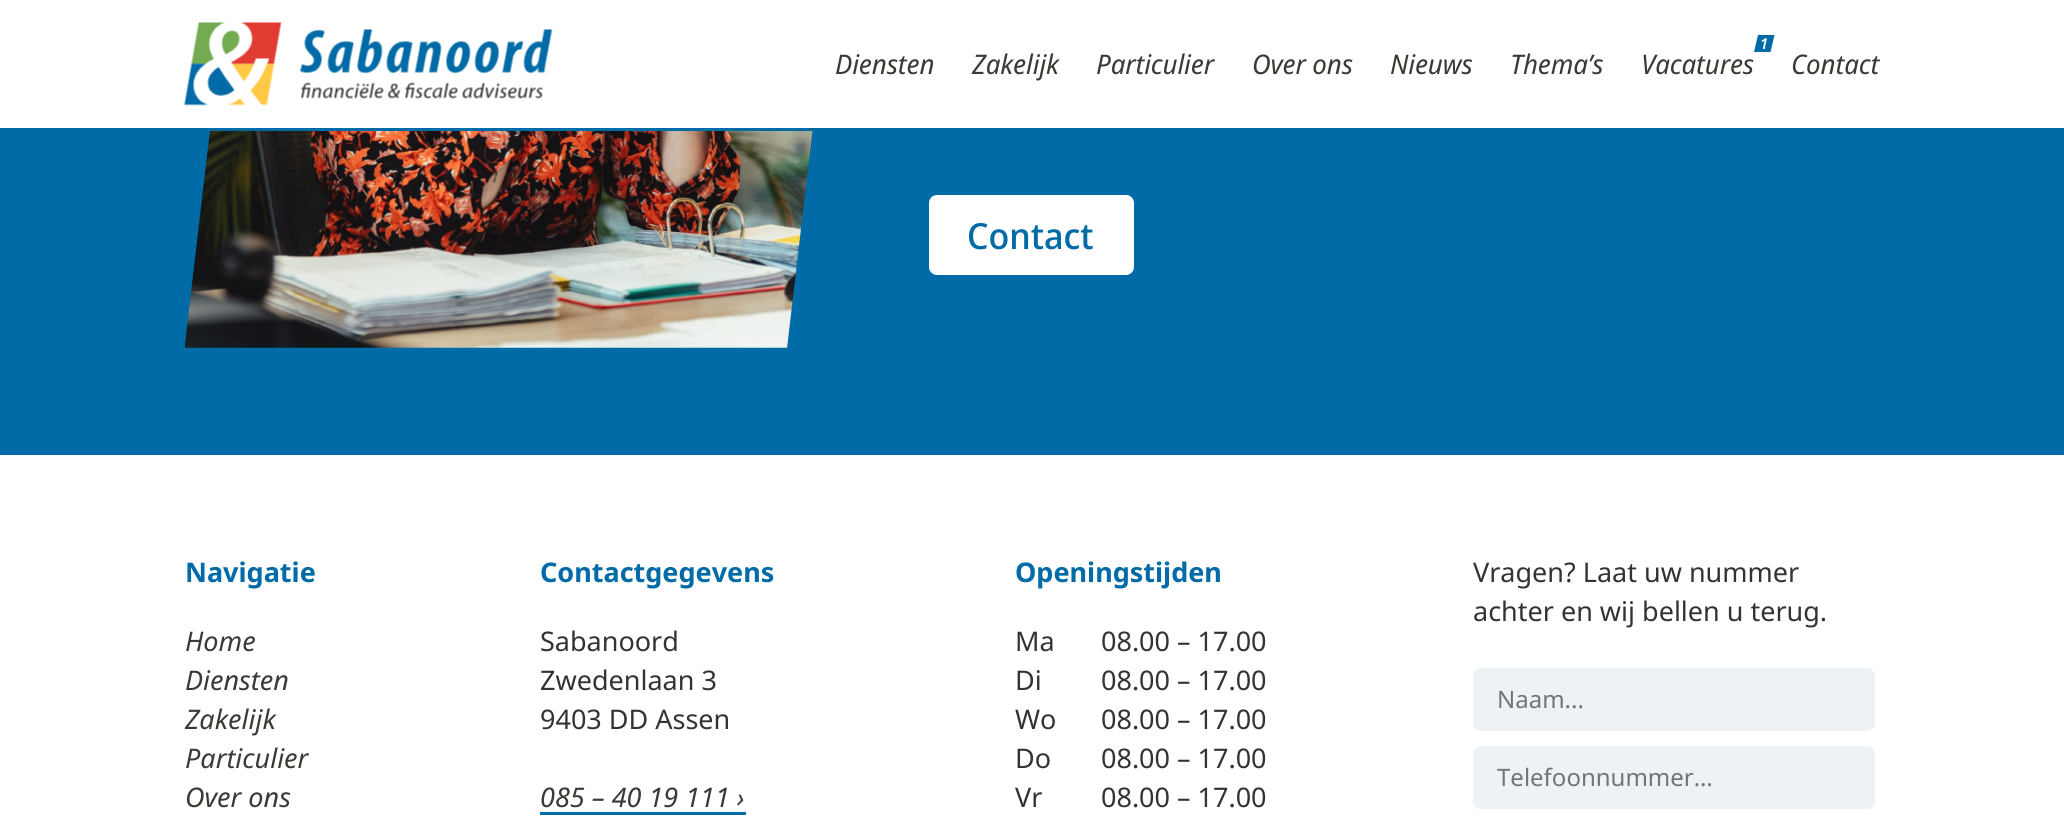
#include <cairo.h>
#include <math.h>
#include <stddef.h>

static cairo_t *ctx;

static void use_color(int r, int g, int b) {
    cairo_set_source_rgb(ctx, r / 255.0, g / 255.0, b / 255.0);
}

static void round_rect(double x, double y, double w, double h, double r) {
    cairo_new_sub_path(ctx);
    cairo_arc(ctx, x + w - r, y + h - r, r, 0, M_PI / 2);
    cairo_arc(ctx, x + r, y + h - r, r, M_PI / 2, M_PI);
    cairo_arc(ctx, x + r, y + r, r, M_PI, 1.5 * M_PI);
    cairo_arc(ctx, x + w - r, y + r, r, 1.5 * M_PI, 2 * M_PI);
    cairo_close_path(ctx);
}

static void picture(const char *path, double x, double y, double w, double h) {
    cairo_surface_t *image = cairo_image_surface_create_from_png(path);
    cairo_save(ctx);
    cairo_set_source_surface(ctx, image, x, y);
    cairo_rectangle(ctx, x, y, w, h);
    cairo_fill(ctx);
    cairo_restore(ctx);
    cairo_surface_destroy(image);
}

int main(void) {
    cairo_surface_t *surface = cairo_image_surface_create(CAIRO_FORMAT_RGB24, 2064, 823);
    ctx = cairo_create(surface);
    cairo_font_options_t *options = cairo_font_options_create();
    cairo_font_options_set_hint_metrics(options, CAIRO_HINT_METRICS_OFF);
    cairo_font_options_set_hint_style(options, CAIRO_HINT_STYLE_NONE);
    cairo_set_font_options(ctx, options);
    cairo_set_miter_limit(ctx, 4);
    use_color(255, 255, 255);
    cairo_paint(ctx);
    picture("img1.png", 184, 22, 369, 84);
    cairo_select_font_face(ctx, "Noto Sans Display", CAIRO_FONT_SLANT_ITALIC, CAIRO_FONT_WEIGHT_NORMAL);
    cairo_set_font_size(ctx, 27);
    use_color(61, 57, 53);
    cairo_move_to(ctx, 835, 74);
    cairo_show_text(ctx, "Diensten");
    cairo_move_to(ctx, 972, 74);
    cairo_show_text(ctx, "Zakelijk");
    cairo_move_to(ctx, 1096, 74);
    cairo_show_text(ctx, "Particulier");
    cairo_move_to(ctx, 1252, 74);
    cairo_show_text(ctx, "Over ons");
    cairo_move_to(ctx, 1390, 74);
    cairo_show_text(ctx, "Nieuws");
    cairo_move_to(ctx, 1510, 74);
    cairo_show_text(ctx, "Thema’s");
    use_color(0, 107, 166);
    cairo_new_path(ctx);
    cairo_move_to(ctx, 1774.5, 35);
    cairo_line_to(ctx, 1758, 35);
    cairo_line_to(ctx, 1754, 52);
    cairo_line_to(ctx, 1770.5, 52);
    cairo_close_path(ctx);
    cairo_fill(ctx);
    cairo_select_font_face(ctx, "Noto Sans Display SemiBold", CAIRO_FONT_SLANT_ITALIC, CAIRO_FONT_WEIGHT_NORMAL);
    cairo_set_font_size(ctx, 15);
    use_color(255, 255, 255);
    cairo_move_to(ctx, 1760, 49);
    cairo_show_text(ctx, "1");
    cairo_select_font_face(ctx, "Noto Sans Display", CAIRO_FONT_SLANT_ITALIC, CAIRO_FONT_WEIGHT_NORMAL);
    cairo_set_font_size(ctx, 27);
    use_color(61, 57, 53);
    cairo_move_to(ctx, 1641, 74);
    cairo_show_text(ctx, "Vacatures");
    cairo_move_to(ctx, 1791, 74);
    cairo_show_text(ctx, "Contact");
    use_color(0, 107, 166);
    cairo_rectangle(ctx, 0, 128, 2064, 327);
    cairo_fill(ctx);
    picture("img2.png", 184, 131, 629, 217);
    use_color(255, 255, 255);
    round_rect(929, 195, 205, 80, 8);
    cairo_fill(ctx);
    cairo_select_font_face(ctx, "Noto Sans Display Medium", CAIRO_FONT_SLANT_NORMAL, CAIRO_FONT_WEIGHT_NORMAL);
    cairo_set_font_size(ctx, 36);
    use_color(0, 107, 166);
    cairo_move_to(ctx, 967, 249);
    cairo_show_text(ctx, "Contact");
    cairo_select_font_face(ctx, "Noto Sans", CAIRO_FONT_SLANT_NORMAL, CAIRO_FONT_WEIGHT_BOLD);
    cairo_set_font_size(ctx, 27);
    cairo_move_to(ctx, 185, 582);
    cairo_show_text(ctx, "Navigatie");
    cairo_select_font_face(ctx, "Noto Sans", CAIRO_FONT_SLANT_ITALIC, CAIRO_FONT_WEIGHT_NORMAL);
    use_color(61, 57, 53);
    cairo_move_to(ctx, 185, 651);
    cairo_show_text(ctx, "Home");
    cairo_move_to(ctx, 185, 690);
    cairo_show_text(ctx, "Diensten");
    cairo_move_to(ctx, 185, 729);
    cairo_show_text(ctx, "Zakelijk");
    cairo_move_to(ctx, 185, 768);
    cairo_show_text(ctx, "Particulier");
    cairo_move_to(ctx, 185, 807);
    cairo_show_text(ctx, "Over ons");
    cairo_select_font_face(ctx, "Noto Sans", CAIRO_FONT_SLANT_NORMAL, CAIRO_FONT_WEIGHT_BOLD);
    use_color(0, 107, 166);
    cairo_move_to(ctx, 540, 582);
    cairo_show_text(ctx, "Contactgegevens");
    cairo_select_font_face(ctx, "Noto Sans", CAIRO_FONT_SLANT_NORMAL, CAIRO_FONT_WEIGHT_NORMAL);
    use_color(51, 51, 51);
    cairo_move_to(ctx, 540, 651);
    cairo_show_text(ctx, "Sabanoord");
    cairo_move_to(ctx, 540, 690);
    cairo_show_text(ctx, "Zwedenlaan 3");
    cairo_move_to(ctx, 540, 729);
    cairo_show_text(ctx, "9403 DD Assen");
    cairo_select_font_face(ctx, "Noto Sans", CAIRO_FONT_SLANT_ITALIC, CAIRO_FONT_WEIGHT_NORMAL);
    use_color(61, 57, 53);
    cairo_move_to(ctx, 540, 807);
    cairo_show_text(ctx, "085 – 40 19 111 ›");
    use_color(0, 107, 166);
    cairo_rectangle(ctx, 540, 812, 206, 3);
    cairo_fill(ctx);
    cairo_select_font_face(ctx, "Noto Sans", CAIRO_FONT_SLANT_NORMAL, CAIRO_FONT_WEIGHT_BOLD);
    cairo_move_to(ctx, 1015, 582);
    cairo_show_text(ctx, "Openingstijden");
    cairo_select_font_face(ctx, "Noto Sans", CAIRO_FONT_SLANT_NORMAL, CAIRO_FONT_WEIGHT_NORMAL);
    use_color(51, 51, 51);
    cairo_move_to(ctx, 1015, 651);
    cairo_show_text(ctx, "Ma");
    cairo_move_to(ctx, 1015, 690);
    cairo_show_text(ctx, "Di");
    cairo_move_to(ctx, 1015, 729);
    cairo_show_text(ctx, "Wo");
    cairo_move_to(ctx, 1015, 768);
    cairo_show_text(ctx, "Do");
    cairo_move_to(ctx, 1015, 807);
    cairo_show_text(ctx, "Vr");
    cairo_move_to(ctx, 1101, 651);
    cairo_show_text(ctx, "08.00 – 17.00");
    cairo_move_to(ctx, 1101, 690);
    cairo_show_text(ctx, "08.00 – 17.00");
    cairo_move_to(ctx, 1101, 729);
    cairo_show_text(ctx, "08.00 – 17.00");
    cairo_move_to(ctx, 1101, 768);
    cairo_show_text(ctx, "08.00 – 17.00");
    cairo_move_to(ctx, 1101, 807);
    cairo_show_text(ctx, "08.00 – 17.00");
    cairo_move_to(ctx, 1473, 582);
    cairo_show_text(ctx, "Vragen? Laat uw nummer");
    cairo_move_to(ctx, 1473, 621);
    cairo_show_text(ctx, "achter en wij bellen u terug.");
    use_color(236, 242, 245);
    round_rect(1473, 668, 402, 63, 8);
    cairo_fill(ctx);
    cairo_set_font_size(ctx, 24);
    use_color(113, 117, 120);
    cairo_move_to(ctx, 1497, 708);
    cairo_show_text(ctx, "Naam...");
    use_color(236, 242, 245);
    round_rect(1473, 746, 402, 63, 8);
    cairo_fill(ctx);
    use_color(113, 117, 120);
    cairo_move_to(ctx, 1497, 786);
    cairo_show_text(ctx, "Telefoonnummer…");
    cairo_surface_write_to_png(surface, "result.png");
    cairo_font_options_destroy(options);
    cairo_destroy(ctx);
    cairo_surface_destroy(surface);
    return 0;
}
